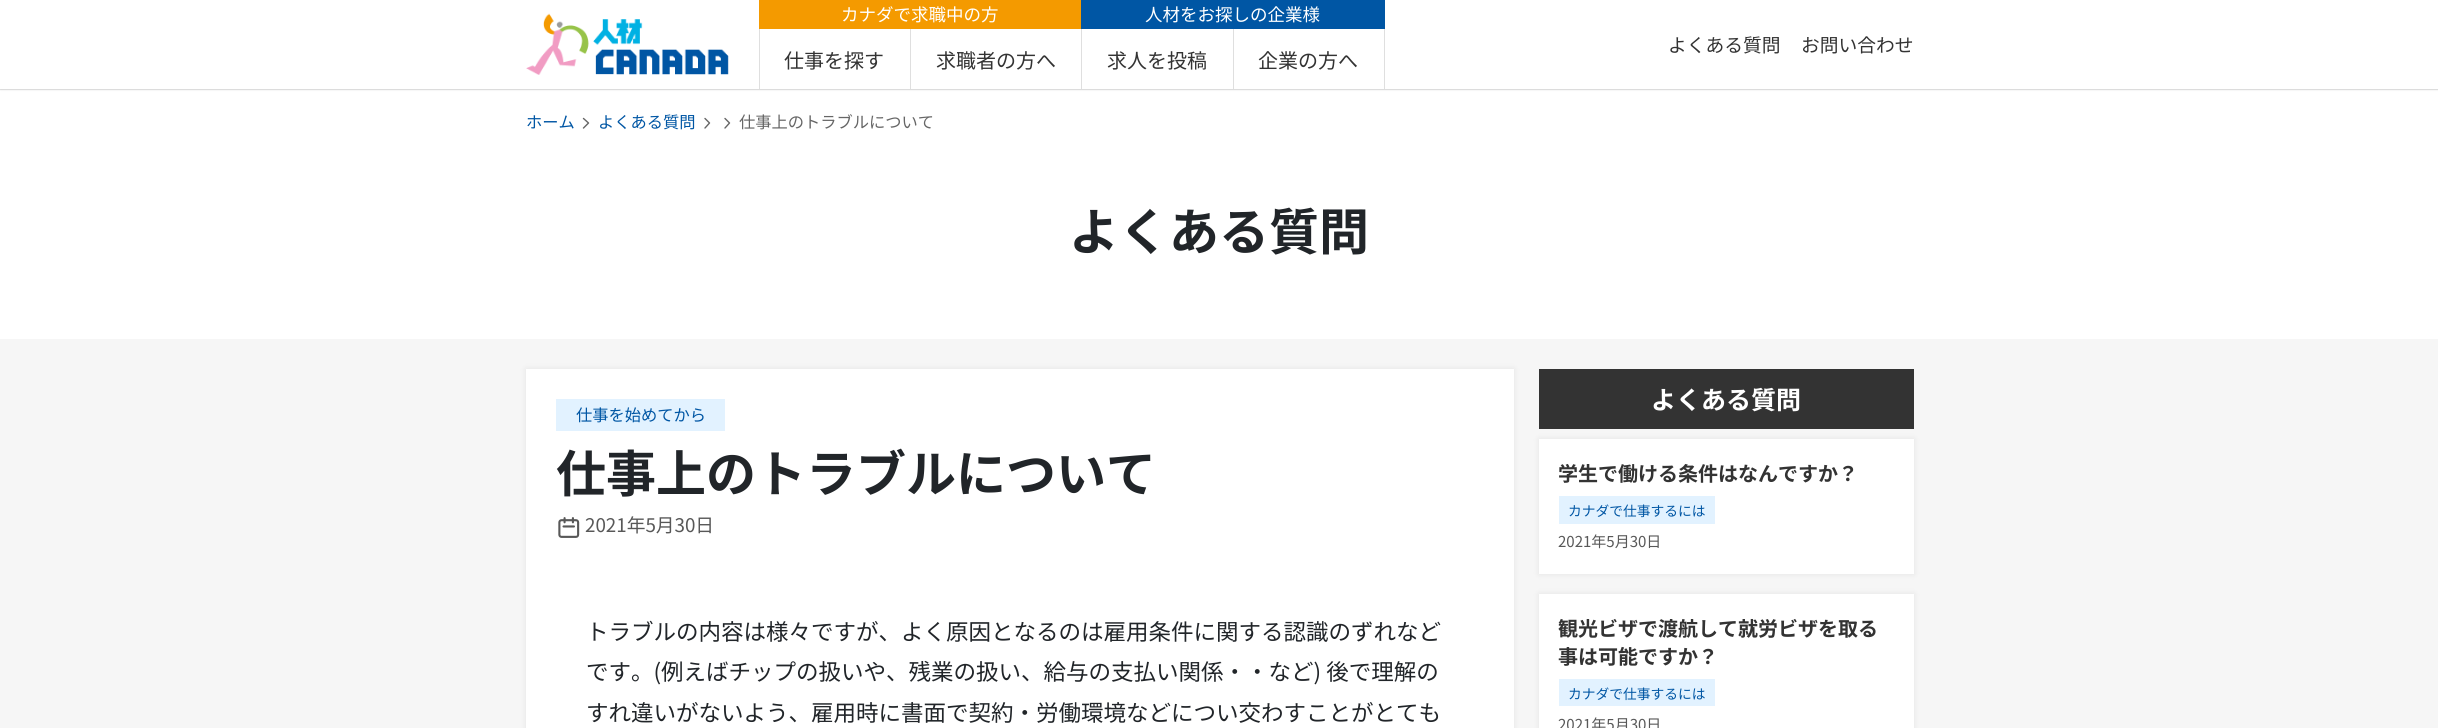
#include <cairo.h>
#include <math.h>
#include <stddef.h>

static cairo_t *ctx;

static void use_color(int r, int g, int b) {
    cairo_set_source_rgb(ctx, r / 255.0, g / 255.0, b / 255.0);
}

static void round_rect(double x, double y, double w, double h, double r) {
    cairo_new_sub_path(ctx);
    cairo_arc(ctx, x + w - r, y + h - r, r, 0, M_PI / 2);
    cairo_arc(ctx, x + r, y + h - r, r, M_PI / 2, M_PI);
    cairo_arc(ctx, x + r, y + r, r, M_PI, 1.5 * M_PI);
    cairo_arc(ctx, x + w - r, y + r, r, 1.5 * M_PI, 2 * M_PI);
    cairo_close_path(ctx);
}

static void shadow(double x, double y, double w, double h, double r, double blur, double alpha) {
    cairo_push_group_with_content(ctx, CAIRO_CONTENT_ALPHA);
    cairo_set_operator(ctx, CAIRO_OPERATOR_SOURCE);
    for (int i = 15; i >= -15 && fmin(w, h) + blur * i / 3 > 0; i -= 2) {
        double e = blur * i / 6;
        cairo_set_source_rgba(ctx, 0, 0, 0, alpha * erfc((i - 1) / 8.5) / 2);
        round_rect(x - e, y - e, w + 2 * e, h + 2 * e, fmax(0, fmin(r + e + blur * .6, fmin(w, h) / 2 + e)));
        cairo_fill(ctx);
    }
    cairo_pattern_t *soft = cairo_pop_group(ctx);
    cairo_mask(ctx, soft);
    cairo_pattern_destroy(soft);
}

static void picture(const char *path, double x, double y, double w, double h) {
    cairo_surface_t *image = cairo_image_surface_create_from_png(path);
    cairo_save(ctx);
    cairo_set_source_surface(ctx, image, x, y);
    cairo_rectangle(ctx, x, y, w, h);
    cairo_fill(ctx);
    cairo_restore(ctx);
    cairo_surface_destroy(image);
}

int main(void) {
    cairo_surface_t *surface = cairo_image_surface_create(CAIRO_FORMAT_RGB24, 2438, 728);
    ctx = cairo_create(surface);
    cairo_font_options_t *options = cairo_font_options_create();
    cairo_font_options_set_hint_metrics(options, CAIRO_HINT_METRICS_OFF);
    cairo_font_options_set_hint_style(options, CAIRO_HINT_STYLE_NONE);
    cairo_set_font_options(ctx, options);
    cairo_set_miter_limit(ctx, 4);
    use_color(255, 255, 255);
    cairo_paint(ctx);
    use_color(0, 0, 0);
    shadow(0, 0, 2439, 89, 0, 1, 0.4);
    use_color(255, 255, 255);
    cairo_rectangle(ctx, 0, 0, 2438, 89);
    cairo_fill(ctx);
    picture("img1.png", 526, 13, 203, 62);
    use_color(244, 154, 0);
    cairo_rectangle(ctx, 759, 0, 322, 29);
    cairo_fill(ctx);
    cairo_select_font_face(ctx, "Noto Sans JP", CAIRO_FONT_SLANT_NORMAL, CAIRO_FONT_WEIGHT_NORMAL);
    cairo_set_font_size(ctx, 17.5);
    use_color(255, 255, 255);
    cairo_move_to(ctx, 841, 21);
    cairo_show_text(ctx, "カナダで求職中の方");
    use_color(223, 223, 223);
    cairo_rectangle(ctx, 759, 29, 1, 60);
    cairo_fill(ctx);
    cairo_set_font_size(ctx, 20);
    use_color(51, 51, 51);
    cairo_move_to(ctx, 784, 68);
    cairo_show_text(ctx, "仕事を探す");
    use_color(223, 223, 223);
    cairo_rectangle(ctx, 910, 29, 1, 60);
    cairo_fill(ctx);
    use_color(51, 51, 51);
    cairo_move_to(ctx, 936, 68);
    cairo_show_text(ctx, "求職者の方へ");
    use_color(0, 86, 164);
    cairo_rectangle(ctx, 1081, 0, 304, 29);
    cairo_fill(ctx);
    cairo_set_font_size(ctx, 17.5);
    use_color(255, 255, 255);
    cairo_move_to(ctx, 1145, 21);
    cairo_show_text(ctx, "人材をお探しの企業様");
    use_color(223, 223, 223);
    cairo_rectangle(ctx, 1233, 29, 1, 60);
    cairo_fill(ctx);
    cairo_rectangle(ctx, 1081, 29, 1, 60);
    cairo_fill(ctx);
    cairo_set_font_size(ctx, 20);
    use_color(51, 51, 51);
    cairo_move_to(ctx, 1107, 68);
    cairo_show_text(ctx, "求人を投稿");
    use_color(223, 223, 223);
    cairo_rectangle(ctx, 1384, 29, 1, 60);
    cairo_fill(ctx);
    use_color(51, 51, 51);
    cairo_move_to(ctx, 1258, 68);
    cairo_show_text(ctx, "企業の方へ");
    cairo_set_font_size(ctx, 18.75);
    cairo_move_to(ctx, 1668, 52);
    cairo_show_text(ctx, "よくある質問");
    cairo_move_to(ctx, 1801, 52);
    cairo_show_text(ctx, "お問い合わせ");
    cairo_set_font_size(ctx, 16.25);
    use_color(0, 86, 164);
    cairo_move_to(ctx, 526, 128);
    cairo_show_text(ctx, "ホーム");
    cairo_new_path(ctx);
    cairo_move_to(ctx, 583.5, 118.5);
    cairo_line_to(ctx, 588.5, 123);
    cairo_line_to(ctx, 583.5, 128);
    use_color(102, 102, 102);
    cairo_set_line_width(ctx, 1.4);
    cairo_set_line_cap(ctx, CAIRO_LINE_CAP_ROUND);
    cairo_set_line_join(ctx, CAIRO_LINE_JOIN_ROUND);
    cairo_stroke(ctx);
    use_color(0, 86, 164);
    cairo_move_to(ctx, 598, 128);
    cairo_show_text(ctx, "よくある質問");
    cairo_new_path(ctx);
    cairo_move_to(ctx, 705, 118.5);
    cairo_line_to(ctx, 709.5, 123);
    cairo_line_to(ctx, 705, 128);
    cairo_move_to(ctx, 725, 118.5);
    cairo_line_to(ctx, 729.5, 123);
    cairo_line_to(ctx, 725, 128);
    use_color(102, 102, 102);
    cairo_stroke(ctx);
    cairo_move_to(ctx, 739, 128);
    cairo_show_text(ctx, "仕事上のトラブルについて");
    cairo_select_font_face(ctx, "Noto Sans JP", CAIRO_FONT_SLANT_NORMAL, CAIRO_FONT_WEIGHT_BOLD);
    cairo_set_font_size(ctx, 50);
    use_color(33, 37, 41);
    cairo_move_to(ctx, 1069, 250);
    cairo_show_text(ctx, "よくある質問");
    use_color(246, 246, 246);
    cairo_rectangle(ctx, 0, 339, 2438, 389);
    cairo_fill(ctx);
    use_color(150, 150, 150);
    shadow(526, 369, 988, 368, 0, 3, 0.2);
    use_color(255, 255, 255);
    cairo_rectangle(ctx, 526, 369, 988, 359);
    cairo_fill(ctx);
    use_color(226, 242, 255);
    cairo_rectangle(ctx, 556, 399, 169, 32);
    cairo_fill(ctx);
    cairo_select_font_face(ctx, "Noto Sans JP", CAIRO_FONT_SLANT_NORMAL, CAIRO_FONT_WEIGHT_NORMAL);
    cairo_set_font_size(ctx, 16.25);
    use_color(0, 86, 164);
    cairo_move_to(ctx, 576, 421);
    cairo_show_text(ctx, "仕事を始めてから");
    cairo_select_font_face(ctx, "Noto Sans JP", CAIRO_FONT_SLANT_NORMAL, CAIRO_FONT_WEIGHT_BOLD);
    cairo_set_font_size(ctx, 50);
    use_color(33, 37, 41);
    cairo_move_to(ctx, 556, 492);
    cairo_show_text(ctx, "仕事上のトラブルについて");
    picture("img2.png", 558, 517, 22, 21);
    cairo_select_font_face(ctx, "Noto Sans JP", CAIRO_FONT_SLANT_NORMAL, CAIRO_FONT_WEIGHT_NORMAL);
    cairo_set_font_size(ctx, 18.75);
    use_color(88, 88, 88);
    cairo_move_to(ctx, 585, 532);
    cairo_show_text(ctx, "2021年5月30日");
    cairo_set_font_size(ctx, 22.5);
    use_color(33, 37, 41);
    cairo_move_to(ctx, 586, 640);
    cairo_show_text(ctx, "トラブルの内容は様々ですが、よく原因となるのは雇用条件に関する認識のずれなど");
    cairo_move_to(ctx, 586, 680);
    cairo_show_text(ctx, "です。(例えばチップの扱いや、残業の扱い、給与の支払い関係・・など) 後で理解の");
    cairo_move_to(ctx, 586, 721);
    cairo_show_text(ctx, "すれ違いがないよう、雇用時に書面で契約・労働環境などについ交わすことがとても");
    use_color(51, 51, 51);
    cairo_rectangle(ctx, 1539, 369, 375, 60);
    cairo_fill(ctx);
    cairo_select_font_face(ctx, "Noto Sans JP", CAIRO_FONT_SLANT_NORMAL, CAIRO_FONT_WEIGHT_BOLD);
    cairo_set_font_size(ctx, 25);
    use_color(255, 255, 255);
    cairo_move_to(ctx, 1651, 409);
    cairo_show_text(ctx, "よくある質問");
    use_color(150, 150, 150);
    shadow(1539, 439, 375, 135, 0, 3, 0.2);
    use_color(255, 255, 255);
    cairo_rectangle(ctx, 1539, 439, 375, 135);
    cairo_fill(ctx);
    cairo_set_font_size(ctx, 20);
    use_color(51, 51, 51);
    cairo_move_to(ctx, 1558, 481);
    cairo_show_text(ctx, "学生で働ける条件はなんですか？");
    use_color(226, 242, 255);
    cairo_rectangle(ctx, 1559, 496, 156, 28);
    cairo_fill(ctx);
    cairo_select_font_face(ctx, "Noto Sans JP", CAIRO_FONT_SLANT_NORMAL, CAIRO_FONT_WEIGHT_NORMAL);
    cairo_set_font_size(ctx, 13.75);
    use_color(0, 86, 164);
    cairo_move_to(ctx, 1568, 516);
    cairo_show_text(ctx, "カナダで仕事するには");
    cairo_set_font_size(ctx, 15);
    use_color(88, 88, 88);
    cairo_move_to(ctx, 1558, 547);
    cairo_show_text(ctx, "2021年5月30日");
    use_color(150, 150, 150);
    shadow(1539, 594, 375, 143, 0, 3, 0.2);
    use_color(255, 255, 255);
    cairo_rectangle(ctx, 1539, 594, 375, 134);
    cairo_fill(ctx);
    cairo_select_font_face(ctx, "Noto Sans JP", CAIRO_FONT_SLANT_NORMAL, CAIRO_FONT_WEIGHT_BOLD);
    cairo_set_font_size(ctx, 20);
    use_color(51, 51, 51);
    cairo_move_to(ctx, 1558, 636);
    cairo_show_text(ctx, "観光ビザで渡航して就労ビザを取る");
    cairo_move_to(ctx, 1558, 664);
    cairo_show_text(ctx, "事は可能ですか？");
    use_color(226, 242, 255);
    cairo_rectangle(ctx, 1559, 679, 156, 27);
    cairo_fill(ctx);
    cairo_select_font_face(ctx, "Noto Sans JP", CAIRO_FONT_SLANT_NORMAL, CAIRO_FONT_WEIGHT_NORMAL);
    cairo_set_font_size(ctx, 13.75);
    use_color(0, 86, 164);
    cairo_move_to(ctx, 1568, 699);
    cairo_show_text(ctx, "カナダで仕事するには");
    cairo_set_font_size(ctx, 15);
    use_color(88, 88, 88);
    cairo_move_to(ctx, 1558, 730);
    cairo_show_text(ctx, "2021年5月30日");
    cairo_surface_write_to_png(surface, "result.png");
    cairo_font_options_destroy(options);
    cairo_destroy(ctx);
    cairo_surface_destroy(surface);
    return 0;
}
